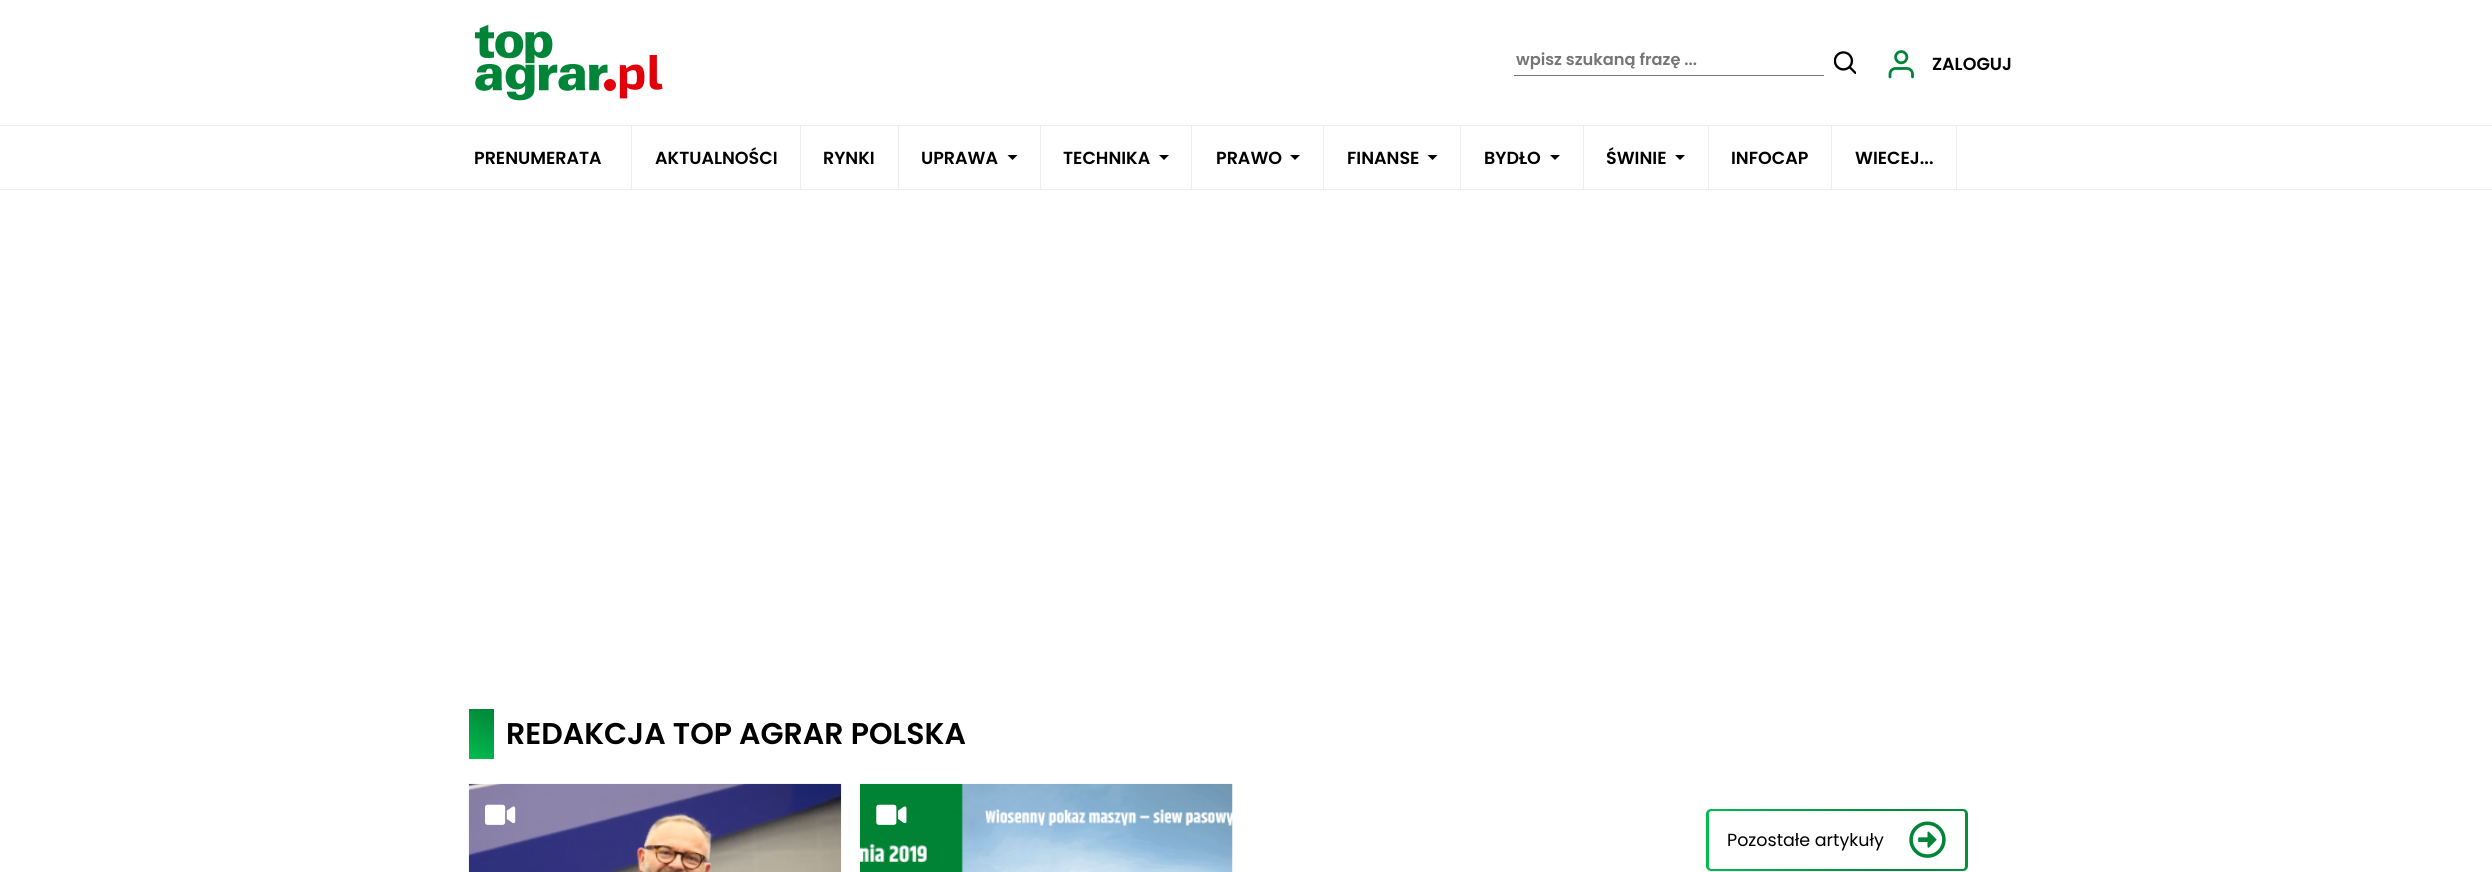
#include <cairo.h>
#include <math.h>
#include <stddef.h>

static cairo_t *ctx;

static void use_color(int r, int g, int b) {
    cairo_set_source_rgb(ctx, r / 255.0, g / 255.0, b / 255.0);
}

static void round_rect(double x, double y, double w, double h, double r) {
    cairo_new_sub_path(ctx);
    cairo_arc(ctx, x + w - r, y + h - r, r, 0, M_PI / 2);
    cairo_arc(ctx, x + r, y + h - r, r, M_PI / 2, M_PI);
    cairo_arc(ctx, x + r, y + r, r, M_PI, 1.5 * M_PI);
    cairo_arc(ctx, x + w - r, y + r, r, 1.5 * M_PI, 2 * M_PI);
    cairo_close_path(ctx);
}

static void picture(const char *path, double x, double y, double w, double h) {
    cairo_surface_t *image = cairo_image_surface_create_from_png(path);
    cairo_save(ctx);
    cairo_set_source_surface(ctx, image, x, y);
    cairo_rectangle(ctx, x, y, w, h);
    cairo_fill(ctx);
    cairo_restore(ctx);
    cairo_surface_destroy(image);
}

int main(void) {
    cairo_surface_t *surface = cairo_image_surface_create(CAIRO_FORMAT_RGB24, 2492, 872);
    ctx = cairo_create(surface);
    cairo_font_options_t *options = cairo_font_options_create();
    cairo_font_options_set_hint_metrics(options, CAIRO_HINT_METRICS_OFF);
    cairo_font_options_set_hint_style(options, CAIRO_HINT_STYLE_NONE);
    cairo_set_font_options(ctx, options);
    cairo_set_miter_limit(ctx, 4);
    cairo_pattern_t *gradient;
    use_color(255, 255, 255);
    cairo_paint(ctx);
    use_color(238, 238, 238);
    cairo_rectangle(ctx, 0, 125, 2492, 1);
    cairo_fill(ctx);
    cairo_rectangle(ctx, 0, 189, 2492, 1);
    cairo_fill(ctx);
    picture("img1.png", 475, 24, 188, 77);
    use_color(117, 117, 117);
    cairo_rectangle(ctx, 1514, 75, 310, 1);
    cairo_fill(ctx);
    cairo_select_font_face(ctx, "Poppins SemiBold", CAIRO_FONT_SLANT_NORMAL, CAIRO_FONT_WEIGHT_NORMAL);
    cairo_set_font_size(ctx, 16.25);
    cairo_move_to(ctx, 1516, 65);
    cairo_show_text(ctx, "wpisz szukaną frazę ...");
    picture("img2.png", 1834, 51, 22, 23);
    picture("img3.png", 1888, 50, 26, 29);
    cairo_set_font_size(ctx, 17.5);
    use_color(0, 0, 0);
    cairo_move_to(ctx, 1932, 70);
    cairo_show_text(ctx, "ZALOGUJ");
    cairo_move_to(ctx, 474, 164);
    cairo_show_text(ctx, "PRENUMERATA");
    use_color(238, 238, 238);
    cairo_rectangle(ctx, 631, 126, 1, 63);
    cairo_fill(ctx);
    use_color(0, 0, 0);
    cairo_move_to(ctx, 655, 164);
    cairo_show_text(ctx, "AKTUALNOŚCI");
    use_color(238, 238, 238);
    cairo_rectangle(ctx, 800, 126, 1, 63);
    cairo_fill(ctx);
    use_color(0, 0, 0);
    cairo_move_to(ctx, 823, 164);
    cairo_show_text(ctx, "RYNKI");
    use_color(238, 238, 238);
    cairo_rectangle(ctx, 898, 126, 1, 63);
    cairo_fill(ctx);
    use_color(0, 0, 0);
    cairo_move_to(ctx, 921, 164);
    cairo_show_text(ctx, "UPRAWA");
    cairo_new_path(ctx);
    cairo_move_to(ctx, 1007.5, 155);
    cairo_line_to(ctx, 1017.5, 155);
    cairo_line_to(ctx, 1012.5, 160);
    cairo_close_path(ctx);
    cairo_fill(ctx);
    use_color(238, 238, 238);
    cairo_rectangle(ctx, 1040, 126, 1, 63);
    cairo_fill(ctx);
    use_color(0, 0, 0);
    cairo_move_to(ctx, 1063, 164);
    cairo_show_text(ctx, "TECHNIKA");
    cairo_new_path(ctx);
    cairo_move_to(ctx, 1159, 155);
    cairo_line_to(ctx, 1169, 155);
    cairo_line_to(ctx, 1164, 160);
    cairo_close_path(ctx);
    cairo_fill(ctx);
    use_color(238, 238, 238);
    cairo_rectangle(ctx, 1191, 126, 1, 63);
    cairo_fill(ctx);
    use_color(0, 0, 0);
    cairo_move_to(ctx, 1216, 164);
    cairo_show_text(ctx, "PRAWO");
    cairo_new_path(ctx);
    cairo_move_to(ctx, 1290, 155);
    cairo_line_to(ctx, 1300, 155);
    cairo_line_to(ctx, 1295, 160);
    cairo_close_path(ctx);
    cairo_fill(ctx);
    use_color(238, 238, 238);
    cairo_rectangle(ctx, 1323, 126, 1, 63);
    cairo_fill(ctx);
    use_color(0, 0, 0);
    cairo_move_to(ctx, 1347, 164);
    cairo_show_text(ctx, "FINANSE");
    cairo_new_path(ctx);
    cairo_move_to(ctx, 1427.5, 155);
    cairo_line_to(ctx, 1437.5, 155);
    cairo_line_to(ctx, 1432.5, 160);
    cairo_close_path(ctx);
    cairo_fill(ctx);
    use_color(238, 238, 238);
    cairo_rectangle(ctx, 1460, 126, 1, 63);
    cairo_fill(ctx);
    use_color(0, 0, 0);
    cairo_move_to(ctx, 1484, 164);
    cairo_show_text(ctx, "BYDŁO");
    cairo_new_path(ctx);
    cairo_move_to(ctx, 1550, 155);
    cairo_line_to(ctx, 1560, 155);
    cairo_line_to(ctx, 1555, 160);
    cairo_close_path(ctx);
    cairo_fill(ctx);
    use_color(238, 238, 238);
    cairo_rectangle(ctx, 1583, 126, 1, 63);
    cairo_fill(ctx);
    use_color(0, 0, 0);
    cairo_move_to(ctx, 1606, 164);
    cairo_show_text(ctx, "ŚWINIE");
    cairo_new_path(ctx);
    cairo_move_to(ctx, 1675, 155);
    cairo_line_to(ctx, 1685, 155);
    cairo_line_to(ctx, 1680, 160);
    cairo_close_path(ctx);
    cairo_fill(ctx);
    use_color(238, 238, 238);
    cairo_rectangle(ctx, 1708, 126, 1, 63);
    cairo_fill(ctx);
    use_color(0, 0, 0);
    cairo_move_to(ctx, 1731, 164);
    cairo_show_text(ctx, "INFOCAP");
    use_color(238, 238, 238);
    cairo_rectangle(ctx, 1831, 126, 1, 63);
    cairo_fill(ctx);
    use_color(0, 0, 0);
    cairo_move_to(ctx, 1855, 164);
    cairo_show_text(ctx, "WIECEJ...");
    use_color(238, 238, 238);
    cairo_rectangle(ctx, 1956, 126, 1, 63);
    cairo_fill(ctx);
    gradient = cairo_pattern_create_linear(469, 759, 494, 709);
    cairo_pattern_add_color_stop_rgba(gradient, 0, 0.008, 0.741, 0.31, 1);
    cairo_pattern_add_color_stop_rgba(gradient, 1, 0, 0.518, 0.216, 1);
    cairo_set_source(ctx, gradient);
    cairo_pattern_destroy(gradient);
    cairo_rectangle(ctx, 469, 709, 25, 50);
    cairo_fill(ctx);
    cairo_set_font_size(ctx, 30);
    use_color(0, 0, 0);
    cairo_move_to(ctx, 506, 744);
    cairo_show_text(ctx, "REDAKCJA TOP AGRAR POLSKA");
    picture("img4.png", 468, 783, 374, 89);
    picture("img5.png", 485, 804, 31, 21);
    picture("img6.png", 860, 783, 373, 89);
    picture("img7.png", 876, 804, 31, 21);
    gradient = cairo_pattern_create_linear(1708, 799, 2227, 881);
    cairo_pattern_add_color_stop_rgba(gradient, 0, 0.008, 0.741, 0.31, 1);
    cairo_pattern_add_color_stop_rgba(gradient, 0.4, 0, 0.518, 0.216, 1);
    cairo_pattern_add_color_stop_rgba(gradient, 0.8, 0.008, 0.741, 0.31, 1);
    cairo_set_source(ctx, gradient);
    cairo_pattern_destroy(gradient);
    round_rect(1706, 809, 262, 62, 5);
    cairo_fill(ctx);
    use_color(255, 255, 255);
    round_rect(1709, 811, 256, 58, 2.5);
    cairo_fill(ctx);
    cairo_select_font_face(ctx, "Poppins", CAIRO_FONT_SLANT_NORMAL, CAIRO_FONT_WEIGHT_NORMAL);
    cairo_set_font_size(ctx, 17.5);
    use_color(0, 0, 0);
    cairo_move_to(ctx, 1727, 846);
    cairo_show_text(ctx, "Pozostałe artykuły");
    picture("img8.png", 1909, 821, 37, 37);
    cairo_surface_write_to_png(surface, "result.png");
    cairo_font_options_destroy(options);
    cairo_destroy(ctx);
    cairo_surface_destroy(surface);
    return 0;
}
